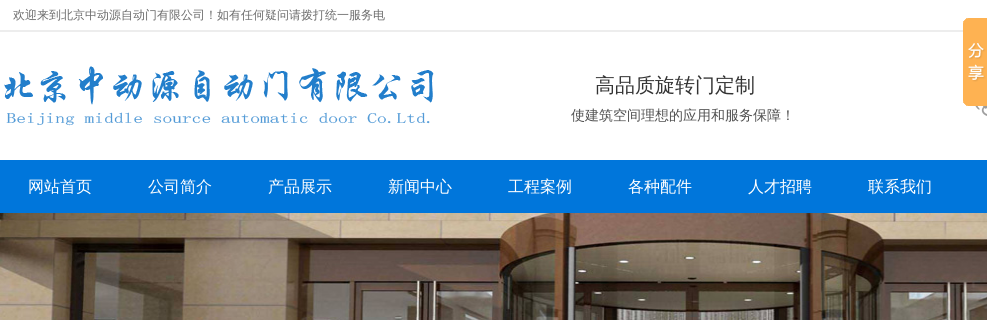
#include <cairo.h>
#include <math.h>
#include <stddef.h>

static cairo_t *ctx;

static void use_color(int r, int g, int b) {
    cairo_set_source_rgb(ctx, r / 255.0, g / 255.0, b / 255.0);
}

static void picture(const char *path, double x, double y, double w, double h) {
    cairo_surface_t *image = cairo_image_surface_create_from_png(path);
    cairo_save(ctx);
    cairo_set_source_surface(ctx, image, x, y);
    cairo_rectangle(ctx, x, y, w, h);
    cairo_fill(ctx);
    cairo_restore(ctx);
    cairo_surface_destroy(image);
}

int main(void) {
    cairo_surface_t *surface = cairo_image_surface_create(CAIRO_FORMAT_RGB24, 987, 320);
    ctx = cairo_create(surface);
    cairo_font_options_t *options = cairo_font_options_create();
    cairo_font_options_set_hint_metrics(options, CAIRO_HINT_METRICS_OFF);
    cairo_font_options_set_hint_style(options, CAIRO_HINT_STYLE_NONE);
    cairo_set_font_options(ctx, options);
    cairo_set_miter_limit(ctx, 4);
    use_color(255, 255, 255);
    cairo_paint(ctx);
    use_color(237, 237, 237);
    cairo_rectangle(ctx, 0, 30, 963, 2);
    cairo_fill(ctx);
    cairo_select_font_face(ctx, "WenQuanYi Zen Hei Medium", CAIRO_FONT_SLANT_NORMAL, CAIRO_FONT_WEIGHT_NORMAL);
    cairo_set_font_size(ctx, 12);
    use_color(108, 108, 108);
    cairo_move_to(ctx, 13, 19);
    cairo_show_text(ctx, "欢迎来到北京中动源自动门有限公司！如有任何疑问请拨打统一服务电");
    picture("img1.png", 4, 66, 430, 60);
    cairo_set_font_size(ctx, 20);
    use_color(51, 51, 51);
    cairo_move_to(ctx, 595, 92);
    cairo_show_text(ctx, "高品质旋转门定制");
    cairo_set_font_size(ctx, 14);
    use_color(81, 81, 81);
    cairo_move_to(ctx, 571, 120);
    cairo_show_text(ctx, "使建筑空间理想的应用和服务保障！");
    picture("img2.png", 975, 106, 12, 10);
    picture("img3.png", 963, 18, 24, 88);
    use_color(0, 118, 219);
    cairo_rectangle(ctx, 0, 160, 987, 53);
    cairo_fill(ctx);
    cairo_set_font_size(ctx, 16);
    use_color(255, 255, 255);
    cairo_move_to(ctx, 28, 192);
    cairo_show_text(ctx, "网站首页");
    cairo_move_to(ctx, 148, 192);
    cairo_show_text(ctx, "公司简介");
    cairo_move_to(ctx, 268, 192);
    cairo_show_text(ctx, "产品展示");
    cairo_move_to(ctx, 388, 192);
    cairo_show_text(ctx, "新闻中心");
    cairo_move_to(ctx, 508, 192);
    cairo_show_text(ctx, "工程案例");
    cairo_move_to(ctx, 628, 192);
    cairo_show_text(ctx, "各种配件");
    cairo_move_to(ctx, 748, 192);
    cairo_show_text(ctx, "人才招聘");
    cairo_move_to(ctx, 868, 192);
    cairo_show_text(ctx, "联系我们");
    picture("img4.png", 0, 213, 987, 107);
    cairo_surface_write_to_png(surface, "result.png");
    cairo_font_options_destroy(options);
    cairo_destroy(ctx);
    cairo_surface_destroy(surface);
    return 0;
}
